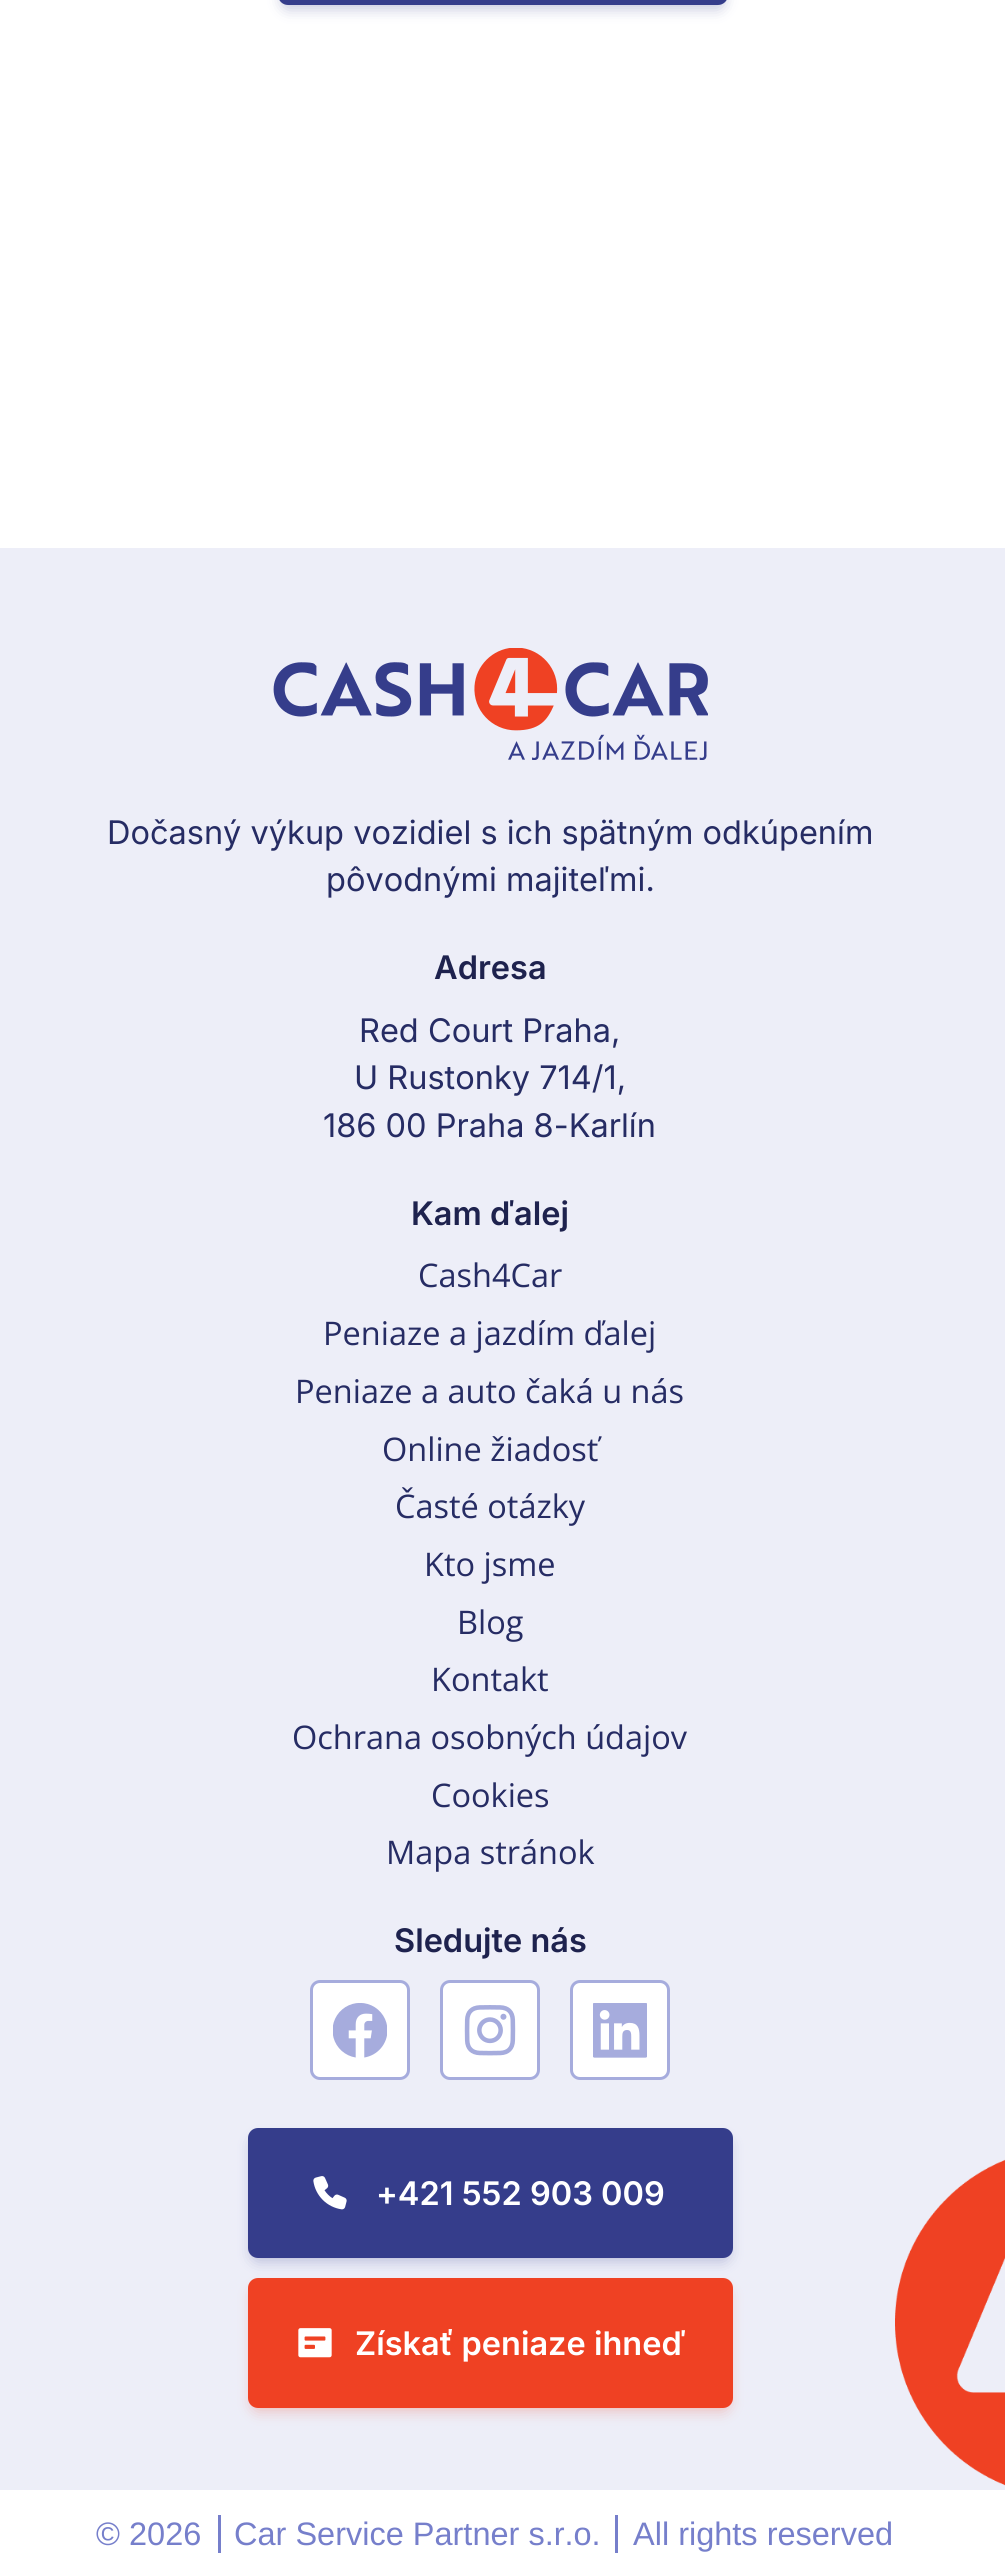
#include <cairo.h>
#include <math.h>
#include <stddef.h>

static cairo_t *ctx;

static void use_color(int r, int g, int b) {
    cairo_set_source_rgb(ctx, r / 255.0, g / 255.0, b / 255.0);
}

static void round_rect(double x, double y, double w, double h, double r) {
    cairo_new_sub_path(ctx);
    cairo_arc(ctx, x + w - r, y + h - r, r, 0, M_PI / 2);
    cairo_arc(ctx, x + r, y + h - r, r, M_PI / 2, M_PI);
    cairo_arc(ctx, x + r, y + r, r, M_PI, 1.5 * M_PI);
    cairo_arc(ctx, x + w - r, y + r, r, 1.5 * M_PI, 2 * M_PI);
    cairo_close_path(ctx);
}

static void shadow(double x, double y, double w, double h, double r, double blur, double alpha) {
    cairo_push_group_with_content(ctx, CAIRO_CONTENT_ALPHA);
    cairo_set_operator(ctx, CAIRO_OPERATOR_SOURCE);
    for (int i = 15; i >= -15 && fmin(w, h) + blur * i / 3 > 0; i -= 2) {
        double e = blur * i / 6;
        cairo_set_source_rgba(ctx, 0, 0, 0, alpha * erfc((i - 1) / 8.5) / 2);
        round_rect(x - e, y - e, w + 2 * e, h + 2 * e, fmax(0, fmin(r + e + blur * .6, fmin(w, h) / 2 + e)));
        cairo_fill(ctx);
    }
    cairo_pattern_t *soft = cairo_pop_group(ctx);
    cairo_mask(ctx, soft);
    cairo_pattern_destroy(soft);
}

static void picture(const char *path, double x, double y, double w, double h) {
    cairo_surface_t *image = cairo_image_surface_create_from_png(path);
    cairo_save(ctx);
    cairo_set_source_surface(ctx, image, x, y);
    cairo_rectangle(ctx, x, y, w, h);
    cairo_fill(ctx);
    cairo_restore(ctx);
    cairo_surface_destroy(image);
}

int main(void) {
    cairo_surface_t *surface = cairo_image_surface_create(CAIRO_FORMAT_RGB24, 1005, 2572);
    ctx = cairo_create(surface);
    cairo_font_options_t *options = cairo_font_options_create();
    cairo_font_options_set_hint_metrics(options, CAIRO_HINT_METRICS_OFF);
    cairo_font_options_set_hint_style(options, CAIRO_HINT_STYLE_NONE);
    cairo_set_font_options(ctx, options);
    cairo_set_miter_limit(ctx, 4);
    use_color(255, 255, 255);
    cairo_paint(ctx);
    use_color(53, 61, 139);
    shadow(283, -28, 440, 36, 5, 7.5, 0.32);
    round_rect(280.5, -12.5, 445, 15, 7.5);
    use_color(53, 61, 139);
    cairo_set_line_width(ctx, 5);
    cairo_stroke(ctx);
    use_color(237, 238, 248);
    cairo_rectangle(ctx, 0, 548, 1005, 1942);
    cairo_fill(ctx);
    picture("img1.png", 273, 648, 435, 112);
    cairo_select_font_face(ctx, "Inter", CAIRO_FONT_SLANT_NORMAL, CAIRO_FONT_WEIGHT_NORMAL);
    cairo_set_font_size(ctx, 32.5);
    use_color(38, 44, 100);
    cairo_move_to(ctx, 107, 844);
    cairo_show_text(ctx, "Dočasný výkup vozidiel s ich spätným odkúpením");
    cairo_move_to(ctx, 326, 891);
    cairo_show_text(ctx, "pôvodnými majiteľmi.");
    cairo_select_font_face(ctx, "Inter SemiBold", CAIRO_FONT_SLANT_NORMAL, CAIRO_FONT_WEIGHT_NORMAL);
    use_color(30, 34, 78);
    cairo_move_to(ctx, 434, 979);
    cairo_show_text(ctx, "Adresa");
    cairo_select_font_face(ctx, "Inter", CAIRO_FONT_SLANT_NORMAL, CAIRO_FONT_WEIGHT_NORMAL);
    use_color(38, 44, 100);
    cairo_move_to(ctx, 359, 1042);
    cairo_show_text(ctx, "Red Court Praha,");
    cairo_move_to(ctx, 354, 1089);
    cairo_show_text(ctx, "U Rustonky 714/1,");
    cairo_move_to(ctx, 323, 1137);
    cairo_show_text(ctx, "186 00 Praha 8-Karlín");
    cairo_select_font_face(ctx, "Inter SemiBold", CAIRO_FONT_SLANT_NORMAL, CAIRO_FONT_WEIGHT_NORMAL);
    use_color(30, 34, 78);
    cairo_move_to(ctx, 411, 1225);
    cairo_show_text(ctx, "Kam ďalej");
    cairo_select_font_face(ctx, "Open Sans", CAIRO_FONT_SLANT_NORMAL, CAIRO_FONT_WEIGHT_NORMAL);
    use_color(38, 44, 100);
    cairo_move_to(ctx, 418, 1287);
    cairo_show_text(ctx, "Cash4Car");
    cairo_move_to(ctx, 323, 1345);
    cairo_show_text(ctx, "Peniaze a jazdím ďalej");
    cairo_move_to(ctx, 295, 1403);
    cairo_show_text(ctx, "Peniaze a auto čaká u nás");
    cairo_move_to(ctx, 382, 1461);
    cairo_show_text(ctx, "Online žiadosť");
    cairo_move_to(ctx, 395, 1518);
    cairo_show_text(ctx, "Časté otázky");
    cairo_move_to(ctx, 424, 1576);
    cairo_show_text(ctx, "Kto jsme");
    cairo_move_to(ctx, 457, 1634);
    cairo_show_text(ctx, "Blog");
    cairo_move_to(ctx, 431, 1691);
    cairo_show_text(ctx, "Kontakt");
    cairo_move_to(ctx, 292, 1749);
    cairo_show_text(ctx, "Ochrana osobných údajov");
    cairo_move_to(ctx, 431, 1807);
    cairo_show_text(ctx, "Cookies");
    cairo_move_to(ctx, 386, 1864);
    cairo_show_text(ctx, "Mapa stránok");
    cairo_select_font_face(ctx, "Inter SemiBold", CAIRO_FONT_SLANT_NORMAL, CAIRO_FONT_WEIGHT_NORMAL);
    use_color(30, 34, 78);
    cairo_move_to(ctx, 394, 1952);
    cairo_show_text(ctx, "Sledujte nás");
    use_color(255, 255, 255);
    round_rect(311.5, 1981.5, 97, 97, 8.5);
    cairo_fill_preserve(ctx);
    use_color(166, 172, 221);
    cairo_set_line_width(ctx, 3);
    cairo_stroke(ctx);
    picture("img2.png", 333, 2003, 54, 55);
    use_color(255, 255, 255);
    round_rect(441.5, 1981.5, 97, 97, 8.5);
    cairo_fill_preserve(ctx);
    use_color(166, 172, 221);
    cairo_stroke(ctx);
    picture("img3.png", 464, 2005, 52, 51);
    use_color(255, 255, 255);
    round_rect(571.5, 1981.5, 97, 97, 8.5);
    cairo_fill_preserve(ctx);
    use_color(166, 172, 221);
    cairo_stroke(ctx);
    picture("img4.png", 593, 2003, 54, 55);
    use_color(53, 61, 139);
    shadow(253, 2140, 475, 120, 5, 7.5, 0.32);
    use_color(53, 61, 139);
    round_rect(250.5, 2130.5, 480, 125, 7.5);
    cairo_fill_preserve(ctx);
    cairo_set_line_width(ctx, 5);
    cairo_stroke(ctx);
    picture("img5.png", 313, 2176, 34, 34);
    use_color(255, 255, 255);
    cairo_move_to(ctx, 376, 2205);
    cairo_show_text(ctx, "+421 552 903 009");
    use_color(239, 65, 35);
    shadow(253, 2290, 475, 120, 5, 7.5, 0.32);
    use_color(239, 65, 35);
    round_rect(250.5, 2280.5, 480, 125, 7.5);
    cairo_fill_preserve(ctx);
    cairo_stroke(ctx);
    picture("img6.png", 298, 2328, 34, 30);
    use_color(255, 255, 255);
    cairo_move_to(ctx, 355, 2355);
    cairo_show_text(ctx, "Získať peniaze ihneď");
    picture("img7.png", 895, 2159, 110, 327);
    cairo_select_font_face(ctx, "Liberation Sans", CAIRO_FONT_SLANT_NORMAL, CAIRO_FONT_WEIGHT_NORMAL);
    use_color(118, 127, 203);
    cairo_move_to(ctx, 96, 2545);
    cairo_show_text(ctx, "© 2026");
    cairo_rectangle(ctx, 218, 2515, 3, 38);
    cairo_fill(ctx);
    cairo_move_to(ctx, 234, 2545);
    cairo_show_text(ctx, "Car Service Partner s.r.o.");
    cairo_rectangle(ctx, 615, 2515, 3, 38);
    cairo_fill(ctx);
    cairo_move_to(ctx, 633, 2545);
    cairo_show_text(ctx, "All rights reserved");
    cairo_surface_write_to_png(surface, "result.png");
    cairo_font_options_destroy(options);
    cairo_destroy(ctx);
    cairo_surface_destroy(surface);
    return 0;
}
